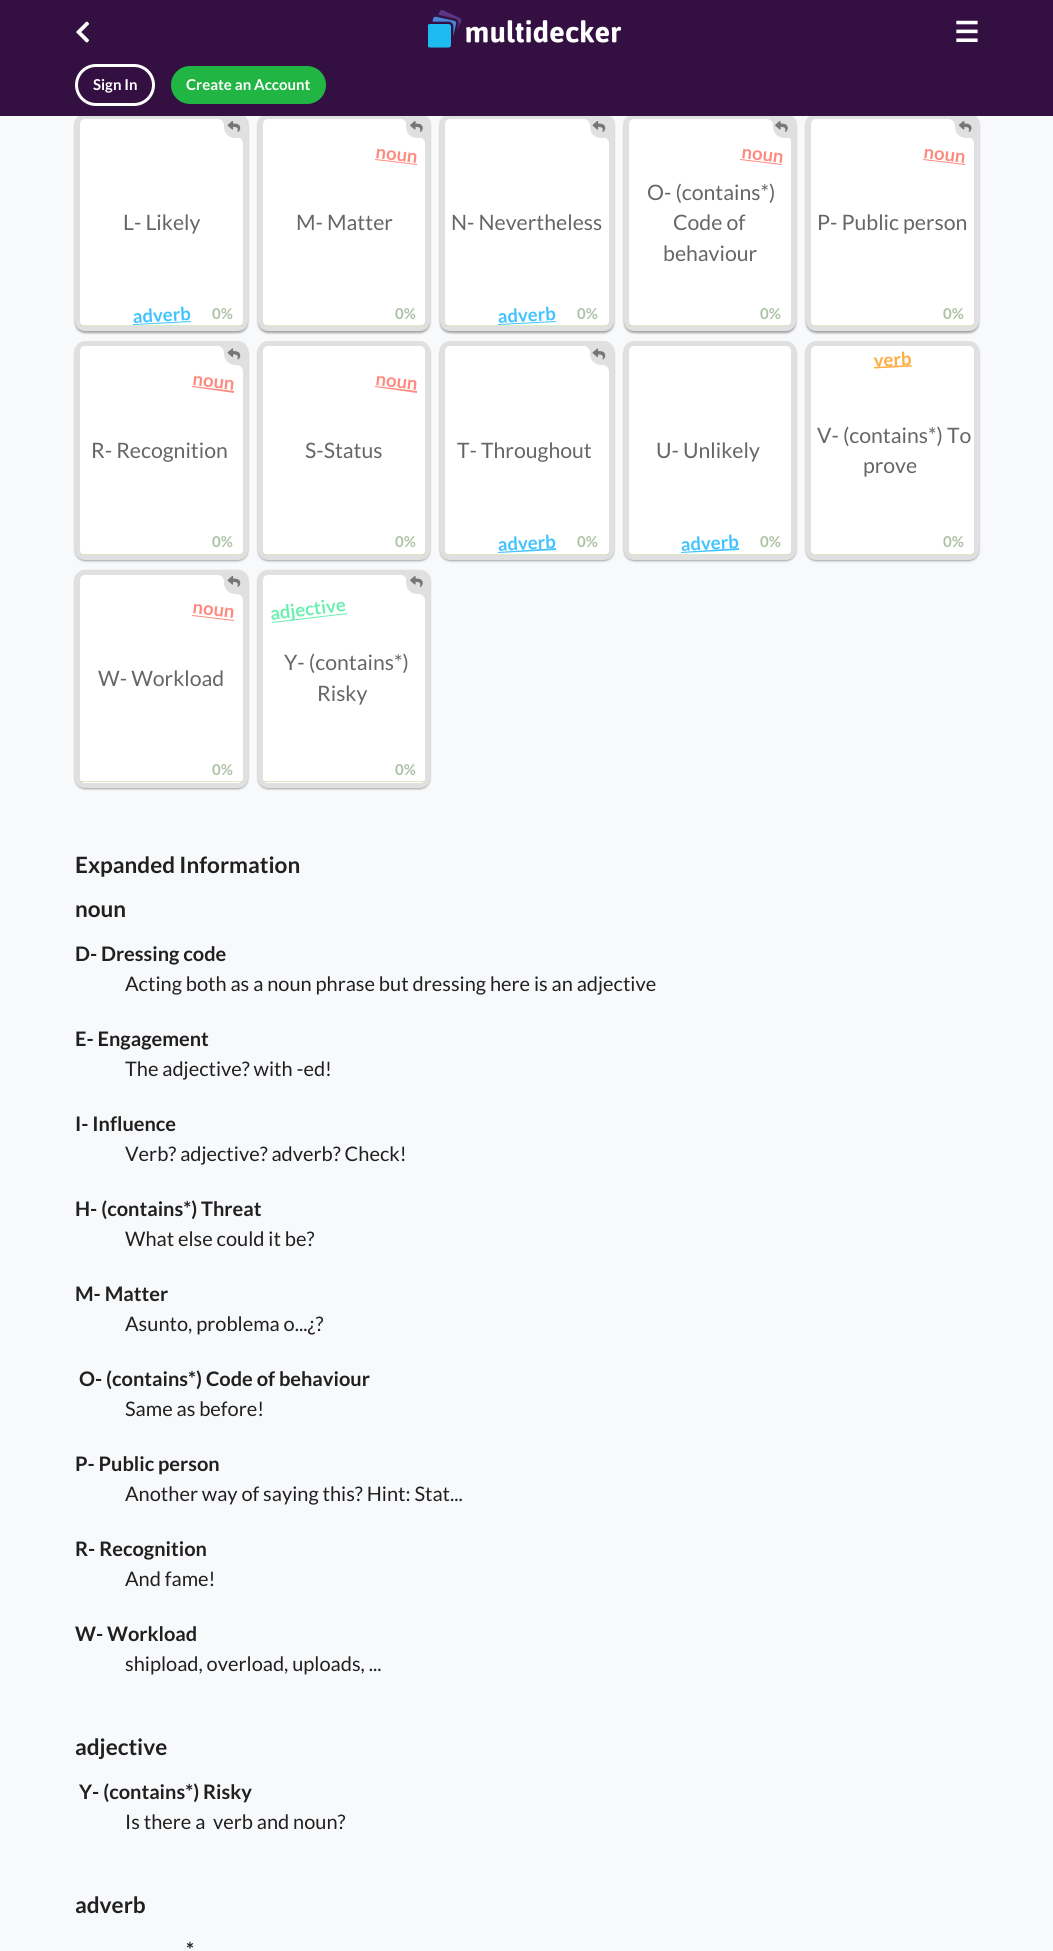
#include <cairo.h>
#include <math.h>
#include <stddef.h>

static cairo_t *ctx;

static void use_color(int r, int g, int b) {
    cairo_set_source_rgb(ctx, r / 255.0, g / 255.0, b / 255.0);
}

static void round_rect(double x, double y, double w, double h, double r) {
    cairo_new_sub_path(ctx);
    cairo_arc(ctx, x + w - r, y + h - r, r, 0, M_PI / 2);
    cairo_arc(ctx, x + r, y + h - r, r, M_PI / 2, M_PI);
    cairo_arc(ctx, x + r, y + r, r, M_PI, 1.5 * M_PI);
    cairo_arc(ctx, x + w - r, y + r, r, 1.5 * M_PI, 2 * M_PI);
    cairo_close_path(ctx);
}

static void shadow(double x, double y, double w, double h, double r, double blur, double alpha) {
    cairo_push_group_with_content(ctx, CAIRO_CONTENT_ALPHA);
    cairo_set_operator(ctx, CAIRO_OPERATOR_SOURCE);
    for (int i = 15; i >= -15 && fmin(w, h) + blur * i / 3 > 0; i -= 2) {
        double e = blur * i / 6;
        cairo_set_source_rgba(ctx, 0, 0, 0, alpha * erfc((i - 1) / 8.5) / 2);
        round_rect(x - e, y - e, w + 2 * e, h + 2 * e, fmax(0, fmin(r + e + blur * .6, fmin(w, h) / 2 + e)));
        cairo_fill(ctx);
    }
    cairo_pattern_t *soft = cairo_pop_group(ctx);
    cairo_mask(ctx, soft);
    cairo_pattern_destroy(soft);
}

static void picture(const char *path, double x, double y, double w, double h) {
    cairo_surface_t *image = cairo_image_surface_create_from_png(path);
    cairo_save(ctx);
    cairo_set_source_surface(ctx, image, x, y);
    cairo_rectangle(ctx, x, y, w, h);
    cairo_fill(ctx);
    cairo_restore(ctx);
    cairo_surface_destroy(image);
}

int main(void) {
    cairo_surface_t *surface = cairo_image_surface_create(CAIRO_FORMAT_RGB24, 1053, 1951);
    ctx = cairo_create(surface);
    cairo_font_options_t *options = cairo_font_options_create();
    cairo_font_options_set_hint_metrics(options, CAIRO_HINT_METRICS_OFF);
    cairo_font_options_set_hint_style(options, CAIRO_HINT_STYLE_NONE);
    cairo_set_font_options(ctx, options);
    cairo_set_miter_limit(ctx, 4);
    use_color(248, 249, 251);
    cairo_paint(ctx);
    use_color(0, 0, 0);
    shadow(75, 115, 173, 218, 10, 1, 0.35);
    use_color(255, 255, 255);
    round_rect(77.5, 116.5, 168, 212, 7.5);
    cairo_fill_preserve(ctx);
    use_color(224, 224, 224);
    cairo_set_line_width(ctx, 5);
    cairo_stroke(ctx);
    cairo_new_path(ctx);
    cairo_move_to(ctx, 224, 119);
    cairo_line_to(ctx, 243, 119);
    cairo_line_to(ctx, 243, 138);
    cairo_line_to(ctx, 235, 138);
    cairo_curve_to(ctx, 229, 138, 224, 133, 224, 127);
    cairo_close_path(ctx);
    cairo_fill(ctx);
    picture("img3.png", 227, 121, 14, 11);
    cairo_save(ctx);
    cairo_rectangle(ctx, 218, 119, 6, 6);
    cairo_clip(ctx);
    cairo_arc(ctx, 217.5, 125.5, 9.5, 0, 2 * M_PI);
    cairo_set_line_width(ctx, 6);
    cairo_stroke(ctx);
    cairo_restore(ctx);
    use_color(0, 0, 0);
    shadow(258, 115, 172, 218, 10, 1, 0.35);
    use_color(255, 255, 255);
    round_rect(260.5, 116.5, 167, 212, 7.5);
    cairo_fill_preserve(ctx);
    use_color(224, 224, 224);
    cairo_stroke(ctx);
    cairo_new_path(ctx);
    cairo_move_to(ctx, 406, 119);
    cairo_line_to(ctx, 425, 119);
    cairo_line_to(ctx, 425, 138);
    cairo_line_to(ctx, 417, 138);
    cairo_curve_to(ctx, 411, 138, 406, 133, 406, 127);
    cairo_close_path(ctx);
    cairo_fill(ctx);
    picture("img4.png", 410, 121, 13, 11);
    cairo_save(ctx);
    cairo_rectangle(ctx, 400, 119, 6, 6);
    cairo_clip(ctx);
    cairo_arc(ctx, 400.5, 125.5, 9.5, 0, 2 * M_PI);
    cairo_set_line_width(ctx, 6);
    cairo_stroke(ctx);
    cairo_restore(ctx);
    use_color(0, 0, 0);
    shadow(440, 115, 174, 218, 10, 1, 0.35);
    use_color(255, 255, 255);
    round_rect(442.5, 116.5, 169, 212, 7.5);
    cairo_fill_preserve(ctx);
    use_color(224, 224, 224);
    cairo_stroke(ctx);
    cairo_new_path(ctx);
    cairo_move_to(ctx, 590, 119);
    cairo_line_to(ctx, 609, 119);
    cairo_line_to(ctx, 609, 138);
    cairo_line_to(ctx, 601, 138);
    cairo_curve_to(ctx, 595, 138, 590, 133, 590, 127);
    cairo_close_path(ctx);
    cairo_fill(ctx);
    picture("img3.png", 592, 121, 14, 11);
    cairo_save(ctx);
    cairo_rectangle(ctx, 584, 119, 6, 6);
    cairo_clip(ctx);
    cairo_arc(ctx, 583.5, 125.5, 9.5, 0, 2 * M_PI);
    cairo_set_line_width(ctx, 6);
    cairo_stroke(ctx);
    cairo_restore(ctx);
    use_color(0, 0, 0);
    shadow(624, 115, 172, 218, 10, 1, 0.35);
    use_color(255, 255, 255);
    round_rect(626.5, 116.5, 167, 212, 7.5);
    cairo_fill_preserve(ctx);
    use_color(224, 224, 224);
    cairo_stroke(ctx);
    cairo_new_path(ctx);
    cairo_move_to(ctx, 773, 119);
    cairo_line_to(ctx, 791, 119);
    cairo_line_to(ctx, 791, 138);
    cairo_line_to(ctx, 784, 138);
    cairo_curve_to(ctx, 778, 138, 773, 133, 773, 127);
    cairo_close_path(ctx);
    cairo_fill(ctx);
    picture("img4.png", 775, 121, 13, 11);
    cairo_save(ctx);
    cairo_rectangle(ctx, 766, 119, 7, 6);
    cairo_clip(ctx);
    cairo_arc(ctx, 766.5, 125.5, 9.5, 0, 2 * M_PI);
    cairo_set_line_width(ctx, 6);
    cairo_stroke(ctx);
    cairo_restore(ctx);
    use_color(0, 0, 0);
    shadow(806, 115, 173, 218, 10, 1, 0.35);
    use_color(255, 255, 255);
    round_rect(808.5, 116.5, 168, 212, 7.5);
    cairo_fill_preserve(ctx);
    use_color(224, 224, 224);
    cairo_stroke(ctx);
    cairo_new_path(ctx);
    cairo_move_to(ctx, 955, 119);
    cairo_line_to(ctx, 974, 119);
    cairo_line_to(ctx, 974, 138);
    cairo_line_to(ctx, 966, 138);
    cairo_curve_to(ctx, 960, 138, 955, 133, 955, 127);
    cairo_close_path(ctx);
    cairo_fill(ctx);
    picture("img5.png", 958, 121, 14, 11);
    cairo_save(ctx);
    cairo_rectangle(ctx, 949, 119, 6, 6);
    cairo_clip(ctx);
    cairo_arc(ctx, 948.5, 125.5, 9.5, 0, 2 * M_PI);
    cairo_set_line_width(ctx, 6);
    cairo_stroke(ctx);
    cairo_restore(ctx);
    use_color(51, 16, 65);
    cairo_rectangle(ctx, 0, 0, 1053, 116);
    cairo_fill(ctx);
    picture("img1.png", 76, 21, 13, 22);
    picture("img2.png", 428, 10, 193, 38);
    cairo_select_font_face(ctx, "DejaVu Sans", CAIRO_FONT_SLANT_NORMAL, CAIRO_FONT_WEIGHT_BOLD);
    cairo_set_font_size(ctx, 28);
    use_color(255, 255, 255);
    cairo_move_to(ctx, 954, 42);
    cairo_show_text(ctx, "☰");
    round_rect(76.5, 65.5, 77, 39, 19.5);
    cairo_set_line_width(ctx, 3);
    cairo_stroke(ctx);
    cairo_select_font_face(ctx, "Lato", CAIRO_FONT_SLANT_NORMAL, CAIRO_FONT_WEIGHT_BOLD);
    cairo_set_font_size(ctx, 15);
    cairo_move_to(ctx, 93, 90);
    cairo_show_text(ctx, "Sign In");
    use_color(33, 181, 68);
    round_rect(171, 66, 155, 38, 19);
    cairo_fill(ctx);
    use_color(255, 255, 255);
    cairo_move_to(ctx, 186, 90);
    cairo_show_text(ctx, "Create an Account");
    cairo_select_font_face(ctx, "Lato", CAIRO_FONT_SLANT_NORMAL, CAIRO_FONT_WEIGHT_NORMAL);
    cairo_set_font_size(ctx, 21.25);
    use_color(102, 102, 102);
    cairo_move_to(ctx, 123, 230);
    cairo_show_text(ctx, "L- Likely");
    cairo_save(ctx);
    cairo_rectangle(ctx, 236, 138, 7, 6);
    cairo_clip(ctx);
    cairo_arc(ctx, 236.5, 143.5, 9.5, 0, 2 * M_PI);
    use_color(224, 224, 224);
    cairo_set_line_width(ctx, 6);
    cairo_stroke(ctx);
    cairo_restore(ctx);
    use_color(66, 195, 255);
    cairo_new_path(ctx);
    cairo_move_to(ctx, 133, 324);
    cairo_line_to(ctx, 191, 321);
    cairo_line_to(ctx, 191, 322);
    cairo_line_to(ctx, 133, 325);
    cairo_close_path(ctx);
    cairo_fill(ctx);
    cairo_select_font_face(ctx, "Lato", CAIRO_FONT_SLANT_NORMAL, CAIRO_FONT_WEIGHT_BOLD);
    cairo_set_font_size(ctx, 18.5);
    cairo_save(ctx);
    cairo_translate(ctx, 133, 323);
    cairo_rotate(ctx, -3 * M_PI / 180);
    cairo_move_to(ctx, 0, 0);
    cairo_show_text(ctx, "adverb");
    cairo_restore(ctx);
    cairo_set_source_rgba(ctx, 0.941, 0.973, 0.91, 0.4);
    cairo_rectangle(ctx, 80, 325, 163, 1);
    cairo_fill(ctx);
    cairo_set_source_rgba(ctx, 0.682, 0.835, 0.506, 0.4);
    cairo_rectangle(ctx, 80, 325, 163, 1);
    cairo_fill(ctx);
    cairo_set_font_size(ctx, 15);
    use_color(173, 194, 165);
    cairo_move_to(ctx, 212, 319);
    cairo_show_text(ctx, "0%");
    cairo_save(ctx);
    cairo_rectangle(ctx, 419, 138, 6, 6);
    cairo_clip(ctx);
    cairo_arc(ctx, 418.5, 143.5, 9.5, 0, 2 * M_PI);
    use_color(224, 224, 224);
    cairo_set_line_width(ctx, 6);
    cairo_stroke(ctx);
    cairo_restore(ctx);
    use_color(255, 138, 128);
    cairo_new_path(ctx);
    cairo_move_to(ctx, 375, 159);
    cairo_line_to(ctx, 417, 164);
    cairo_line_to(ctx, 417, 165);
    cairo_line_to(ctx, 375, 160);
    cairo_close_path(ctx);
    cairo_fill(ctx);
    cairo_set_font_size(ctx, 18.5);
    cairo_save(ctx);
    cairo_translate(ctx, 375, 158);
    cairo_rotate(ctx, 7 * M_PI / 180);
    cairo_move_to(ctx, 0, 0);
    cairo_show_text(ctx, "noun");
    cairo_restore(ctx);
    cairo_select_font_face(ctx, "Lato", CAIRO_FONT_SLANT_NORMAL, CAIRO_FONT_WEIGHT_NORMAL);
    cairo_set_font_size(ctx, 21.25);
    use_color(102, 102, 102);
    cairo_move_to(ctx, 296, 230);
    cairo_show_text(ctx, "M- Matter");
    cairo_set_source_rgba(ctx, 0.941, 0.973, 0.91, 0.4);
    cairo_rectangle(ctx, 263, 325, 162, 1);
    cairo_fill(ctx);
    cairo_set_source_rgba(ctx, 0.682, 0.835, 0.506, 0.4);
    cairo_rectangle(ctx, 263, 325, 162, 1);
    cairo_fill(ctx);
    cairo_select_font_face(ctx, "Lato", CAIRO_FONT_SLANT_NORMAL, CAIRO_FONT_WEIGHT_BOLD);
    cairo_set_font_size(ctx, 15);
    use_color(173, 194, 165);
    cairo_move_to(ctx, 395, 319);
    cairo_show_text(ctx, "0%");
    cairo_select_font_face(ctx, "Lato", CAIRO_FONT_SLANT_NORMAL, CAIRO_FONT_WEIGHT_NORMAL);
    cairo_set_font_size(ctx, 21.25);
    use_color(102, 102, 102);
    cairo_move_to(ctx, 451, 230);
    cairo_show_text(ctx, "N- Nevertheless");
    cairo_save(ctx);
    cairo_rectangle(ctx, 603, 138, 6, 6);
    cairo_clip(ctx);
    cairo_arc(ctx, 602.5, 143.5, 9.5, 0, 2 * M_PI);
    use_color(224, 224, 224);
    cairo_set_line_width(ctx, 6);
    cairo_stroke(ctx);
    cairo_restore(ctx);
    use_color(66, 195, 255);
    cairo_new_path(ctx);
    cairo_move_to(ctx, 498, 324);
    cairo_line_to(ctx, 556, 321);
    cairo_line_to(ctx, 556, 322);
    cairo_line_to(ctx, 498, 325);
    cairo_close_path(ctx);
    cairo_fill(ctx);
    cairo_select_font_face(ctx, "Lato", CAIRO_FONT_SLANT_NORMAL, CAIRO_FONT_WEIGHT_BOLD);
    cairo_set_font_size(ctx, 18.5);
    cairo_save(ctx);
    cairo_translate(ctx, 498, 323);
    cairo_rotate(ctx, -3 * M_PI / 180);
    cairo_move_to(ctx, 0, 0);
    cairo_show_text(ctx, "adverb");
    cairo_restore(ctx);
    cairo_set_source_rgba(ctx, 0.941, 0.973, 0.91, 0.4);
    cairo_rectangle(ctx, 445, 325, 164, 1);
    cairo_fill(ctx);
    cairo_set_source_rgba(ctx, 0.682, 0.835, 0.506, 0.4);
    cairo_rectangle(ctx, 445, 325, 164, 1);
    cairo_fill(ctx);
    cairo_set_font_size(ctx, 15);
    use_color(173, 194, 165);
    cairo_move_to(ctx, 577, 319);
    cairo_show_text(ctx, "0%");
    cairo_save(ctx);
    cairo_rectangle(ctx, 785, 138, 6, 6);
    cairo_clip(ctx);
    cairo_arc(ctx, 785.5, 143.5, 9.5, 0, 2 * M_PI);
    use_color(224, 224, 224);
    cairo_set_line_width(ctx, 6);
    cairo_stroke(ctx);
    cairo_restore(ctx);
    use_color(255, 138, 128);
    cairo_new_path(ctx);
    cairo_move_to(ctx, 740, 159);
    cairo_line_to(ctx, 782, 164);
    cairo_line_to(ctx, 782, 165);
    cairo_line_to(ctx, 740, 160);
    cairo_close_path(ctx);
    cairo_fill(ctx);
    cairo_set_font_size(ctx, 18.5);
    cairo_save(ctx);
    cairo_translate(ctx, 741, 158);
    cairo_rotate(ctx, 7 * M_PI / 180);
    cairo_move_to(ctx, 0, 0);
    cairo_show_text(ctx, "noun");
    cairo_restore(ctx);
    cairo_select_font_face(ctx, "Lato", CAIRO_FONT_SLANT_NORMAL, CAIRO_FONT_WEIGHT_NORMAL);
    cairo_set_font_size(ctx, 21.25);
    use_color(102, 102, 102);
    cairo_move_to(ctx, 647, 200);
    cairo_show_text(ctx, "O- (contains*)");
    cairo_move_to(ctx, 673, 230);
    cairo_show_text(ctx, "Code of");
    cairo_move_to(ctx, 663, 261);
    cairo_show_text(ctx, "behaviour");
    cairo_set_source_rgba(ctx, 0.941, 0.973, 0.91, 0.4);
    cairo_rectangle(ctx, 629, 325, 162, 1);
    cairo_fill(ctx);
    cairo_set_source_rgba(ctx, 0.682, 0.835, 0.506, 0.4);
    cairo_rectangle(ctx, 629, 325, 162, 1);
    cairo_fill(ctx);
    cairo_select_font_face(ctx, "Lato", CAIRO_FONT_SLANT_NORMAL, CAIRO_FONT_WEIGHT_BOLD);
    cairo_set_font_size(ctx, 15);
    use_color(173, 194, 165);
    cairo_move_to(ctx, 760, 319);
    cairo_show_text(ctx, "0%");
    cairo_save(ctx);
    cairo_rectangle(ctx, 968, 138, 6, 6);
    cairo_clip(ctx);
    cairo_arc(ctx, 967.5, 143.5, 9.5, 0, 2 * M_PI);
    use_color(224, 224, 224);
    cairo_set_line_width(ctx, 6);
    cairo_stroke(ctx);
    cairo_restore(ctx);
    use_color(255, 138, 128);
    cairo_new_path(ctx);
    cairo_move_to(ctx, 923, 159);
    cairo_line_to(ctx, 965, 164);
    cairo_line_to(ctx, 965, 165);
    cairo_line_to(ctx, 923, 160);
    cairo_close_path(ctx);
    cairo_fill(ctx);
    cairo_set_font_size(ctx, 18.5);
    cairo_save(ctx);
    cairo_translate(ctx, 923, 158);
    cairo_rotate(ctx, 7 * M_PI / 180);
    cairo_move_to(ctx, 0, 0);
    cairo_show_text(ctx, "noun");
    cairo_restore(ctx);
    cairo_select_font_face(ctx, "Lato", CAIRO_FONT_SLANT_NORMAL, CAIRO_FONT_WEIGHT_NORMAL);
    cairo_set_font_size(ctx, 21.25);
    use_color(102, 102, 102);
    cairo_move_to(ctx, 817, 230);
    cairo_show_text(ctx, "P- Public person");
    cairo_set_source_rgba(ctx, 0.941, 0.973, 0.91, 0.4);
    cairo_rectangle(ctx, 811, 325, 163, 1);
    cairo_fill(ctx);
    cairo_set_source_rgba(ctx, 0.682, 0.835, 0.506, 0.4);
    cairo_rectangle(ctx, 811, 325, 163, 1);
    cairo_fill(ctx);
    cairo_select_font_face(ctx, "Lato", CAIRO_FONT_SLANT_NORMAL, CAIRO_FONT_WEIGHT_BOLD);
    cairo_set_font_size(ctx, 15);
    use_color(173, 194, 165);
    cairo_move_to(ctx, 943, 319);
    cairo_show_text(ctx, "0%");
    use_color(0, 0, 0);
    shadow(75, 343, 173, 218, 10, 1, 0.35);
    use_color(255, 255, 255);
    round_rect(77.5, 343.5, 168, 214, 7.5);
    cairo_fill_preserve(ctx);
    use_color(224, 224, 224);
    cairo_set_line_width(ctx, 5);
    cairo_stroke(ctx);
    cairo_new_path(ctx);
    cairo_move_to(ctx, 224, 346);
    cairo_line_to(ctx, 243, 346);
    cairo_line_to(ctx, 243, 365);
    cairo_line_to(ctx, 235, 365);
    cairo_curve_to(ctx, 229, 365, 224, 360, 224, 354);
    cairo_close_path(ctx);
    cairo_fill(ctx);
    picture("img6.png", 227, 348, 14, 12);
    cairo_save(ctx);
    cairo_rectangle(ctx, 218, 346, 6, 7);
    cairo_clip(ctx);
    cairo_arc(ctx, 217.5, 352.5, 9.5, 0, 2 * M_PI);
    cairo_set_line_width(ctx, 6);
    cairo_stroke(ctx);
    cairo_restore(ctx);
    cairo_save(ctx);
    cairo_rectangle(ctx, 236, 365, 7, 6);
    cairo_clip(ctx);
    cairo_arc(ctx, 236.5, 371.5, 9.5, 0, 2 * M_PI);
    cairo_set_line_width(ctx, 6);
    cairo_stroke(ctx);
    cairo_restore(ctx);
    use_color(255, 138, 128);
    cairo_new_path(ctx);
    cairo_move_to(ctx, 192, 386);
    cairo_line_to(ctx, 234, 391);
    cairo_line_to(ctx, 234, 393);
    cairo_line_to(ctx, 192, 387);
    cairo_close_path(ctx);
    cairo_fill(ctx);
    cairo_set_font_size(ctx, 18.5);
    cairo_save(ctx);
    cairo_translate(ctx, 192, 385);
    cairo_rotate(ctx, 7 * M_PI / 180);
    cairo_move_to(ctx, 0, 0);
    cairo_show_text(ctx, "noun");
    cairo_restore(ctx);
    cairo_select_font_face(ctx, "Lato", CAIRO_FONT_SLANT_NORMAL, CAIRO_FONT_WEIGHT_NORMAL);
    cairo_set_font_size(ctx, 21.25);
    use_color(102, 102, 102);
    cairo_move_to(ctx, 91, 458);
    cairo_show_text(ctx, "R- Recognition");
    cairo_set_source_rgba(ctx, 0.941, 0.973, 0.91, 0.4);
    cairo_rectangle(ctx, 80, 554, 163, 1);
    cairo_fill(ctx);
    cairo_set_source_rgba(ctx, 0.682, 0.835, 0.506, 0.4);
    cairo_rectangle(ctx, 80, 554, 163, 1);
    cairo_fill(ctx);
    cairo_select_font_face(ctx, "Lato", CAIRO_FONT_SLANT_NORMAL, CAIRO_FONT_WEIGHT_BOLD);
    cairo_set_font_size(ctx, 15);
    use_color(173, 194, 165);
    cairo_move_to(ctx, 212, 547);
    cairo_show_text(ctx, "0%");
    use_color(0, 0, 0);
    shadow(258, 343, 172, 218, 10, 1, 0.35);
    use_color(255, 255, 255);
    round_rect(260.5, 343.5, 167, 214, 7.5);
    cairo_fill_preserve(ctx);
    use_color(224, 224, 224);
    cairo_stroke(ctx);
    use_color(255, 138, 128);
    cairo_new_path(ctx);
    cairo_move_to(ctx, 375, 386);
    cairo_line_to(ctx, 417, 391);
    cairo_line_to(ctx, 417, 393);
    cairo_line_to(ctx, 375, 387);
    cairo_close_path(ctx);
    cairo_fill(ctx);
    cairo_set_font_size(ctx, 18.5);
    cairo_save(ctx);
    cairo_translate(ctx, 375, 385);
    cairo_rotate(ctx, 7 * M_PI / 180);
    cairo_move_to(ctx, 0, 0);
    cairo_show_text(ctx, "noun");
    cairo_restore(ctx);
    cairo_select_font_face(ctx, "Lato", CAIRO_FONT_SLANT_NORMAL, CAIRO_FONT_WEIGHT_NORMAL);
    cairo_set_font_size(ctx, 21.25);
    use_color(102, 102, 102);
    cairo_move_to(ctx, 305, 458);
    cairo_show_text(ctx, "S-Status");
    cairo_set_source_rgba(ctx, 0.941, 0.973, 0.91, 0.4);
    cairo_rectangle(ctx, 263, 554, 162, 1);
    cairo_fill(ctx);
    cairo_set_source_rgba(ctx, 0.682, 0.835, 0.506, 0.4);
    cairo_rectangle(ctx, 263, 554, 162, 1);
    cairo_fill(ctx);
    cairo_select_font_face(ctx, "Lato", CAIRO_FONT_SLANT_NORMAL, CAIRO_FONT_WEIGHT_BOLD);
    cairo_set_font_size(ctx, 15);
    use_color(173, 194, 165);
    cairo_move_to(ctx, 395, 547);
    cairo_show_text(ctx, "0%");
    use_color(0, 0, 0);
    shadow(440, 343, 174, 218, 10, 1, 0.35);
    use_color(255, 255, 255);
    round_rect(442.5, 343.5, 169, 214, 7.5);
    cairo_fill_preserve(ctx);
    use_color(224, 224, 224);
    cairo_stroke(ctx);
    cairo_select_font_face(ctx, "Lato", CAIRO_FONT_SLANT_NORMAL, CAIRO_FONT_WEIGHT_NORMAL);
    cairo_set_font_size(ctx, 21.25);
    use_color(102, 102, 102);
    cairo_move_to(ctx, 457, 458);
    cairo_show_text(ctx, "T- Throughout");
    use_color(224, 224, 224);
    cairo_new_path(ctx);
    cairo_move_to(ctx, 590, 346);
    cairo_line_to(ctx, 609, 346);
    cairo_line_to(ctx, 609, 365);
    cairo_line_to(ctx, 601, 365);
    cairo_curve_to(ctx, 595, 365, 590, 360, 590, 354);
    cairo_close_path(ctx);
    cairo_fill(ctx);
    picture("img6.png", 592, 348, 14, 12);
    cairo_save(ctx);
    cairo_rectangle(ctx, 584, 346, 6, 7);
    cairo_clip(ctx);
    cairo_arc(ctx, 583.5, 352.5, 9.5, 0, 2 * M_PI);
    cairo_set_line_width(ctx, 6);
    cairo_stroke(ctx);
    cairo_restore(ctx);
    cairo_save(ctx);
    cairo_rectangle(ctx, 603, 365, 6, 6);
    cairo_clip(ctx);
    cairo_arc(ctx, 602.5, 371.5, 9.5, 0, 2 * M_PI);
    cairo_set_line_width(ctx, 6);
    cairo_stroke(ctx);
    cairo_restore(ctx);
    use_color(66, 195, 255);
    cairo_new_path(ctx);
    cairo_move_to(ctx, 498, 552);
    cairo_line_to(ctx, 556, 548);
    cairo_line_to(ctx, 556, 550);
    cairo_line_to(ctx, 498, 553);
    cairo_close_path(ctx);
    cairo_fill(ctx);
    cairo_select_font_face(ctx, "Lato", CAIRO_FONT_SLANT_NORMAL, CAIRO_FONT_WEIGHT_BOLD);
    cairo_set_font_size(ctx, 18.5);
    cairo_save(ctx);
    cairo_translate(ctx, 498, 551);
    cairo_rotate(ctx, -3 * M_PI / 180);
    cairo_move_to(ctx, 0, 0);
    cairo_show_text(ctx, "adverb");
    cairo_restore(ctx);
    cairo_set_source_rgba(ctx, 0.941, 0.973, 0.91, 0.4);
    cairo_rectangle(ctx, 445, 554, 164, 1);
    cairo_fill(ctx);
    cairo_set_source_rgba(ctx, 0.682, 0.835, 0.506, 0.4);
    cairo_rectangle(ctx, 445, 554, 164, 1);
    cairo_fill(ctx);
    cairo_set_font_size(ctx, 15);
    use_color(173, 194, 165);
    cairo_move_to(ctx, 577, 547);
    cairo_show_text(ctx, "0%");
    use_color(0, 0, 0);
    shadow(624, 343, 172, 218, 10, 1, 0.35);
    use_color(255, 255, 255);
    round_rect(626.5, 343.5, 167, 214, 7.5);
    cairo_fill_preserve(ctx);
    use_color(224, 224, 224);
    cairo_stroke(ctx);
    cairo_select_font_face(ctx, "Lato", CAIRO_FONT_SLANT_NORMAL, CAIRO_FONT_WEIGHT_NORMAL);
    cairo_set_font_size(ctx, 21.25);
    use_color(102, 102, 102);
    cairo_move_to(ctx, 656, 458);
    cairo_show_text(ctx, "U- Unlikely");
    use_color(66, 195, 255);
    cairo_new_path(ctx);
    cairo_move_to(ctx, 681, 552);
    cairo_line_to(ctx, 739, 548);
    cairo_line_to(ctx, 739, 550);
    cairo_line_to(ctx, 681, 553);
    cairo_close_path(ctx);
    cairo_fill(ctx);
    cairo_select_font_face(ctx, "Lato", CAIRO_FONT_SLANT_NORMAL, CAIRO_FONT_WEIGHT_BOLD);
    cairo_set_font_size(ctx, 18.5);
    cairo_save(ctx);
    cairo_translate(ctx, 681, 551);
    cairo_rotate(ctx, -3 * M_PI / 180);
    cairo_move_to(ctx, 0, 0);
    cairo_show_text(ctx, "adverb");
    cairo_restore(ctx);
    cairo_set_source_rgba(ctx, 0.941, 0.973, 0.91, 0.4);
    cairo_rectangle(ctx, 629, 554, 162, 1);
    cairo_fill(ctx);
    cairo_set_source_rgba(ctx, 0.682, 0.835, 0.506, 0.4);
    cairo_rectangle(ctx, 629, 554, 162, 1);
    cairo_fill(ctx);
    cairo_set_font_size(ctx, 15);
    use_color(173, 194, 165);
    cairo_move_to(ctx, 760, 547);
    cairo_show_text(ctx, "0%");
    use_color(0, 0, 0);
    shadow(806, 343, 173, 218, 10, 1, 0.35);
    use_color(255, 255, 255);
    round_rect(808.5, 343.5, 168, 214, 7.5);
    cairo_fill_preserve(ctx);
    use_color(224, 224, 224);
    cairo_stroke(ctx);
    use_color(255, 173, 66);
    cairo_new_path(ctx);
    cairo_move_to(ctx, 874, 367);
    cairo_line_to(ctx, 911.5, 365);
    cairo_line_to(ctx, 912, 366.5);
    cairo_line_to(ctx, 874, 368.5);
    cairo_close_path(ctx);
    cairo_fill(ctx);
    cairo_set_font_size(ctx, 18.5);
    cairo_save(ctx);
    cairo_translate(ctx, 874, 367);
    cairo_rotate(ctx, -3 * M_PI / 180);
    cairo_move_to(ctx, 0, 0);
    cairo_show_text(ctx, "verb");
    cairo_restore(ctx);
    cairo_select_font_face(ctx, "Lato", CAIRO_FONT_SLANT_NORMAL, CAIRO_FONT_WEIGHT_NORMAL);
    cairo_set_font_size(ctx, 21.25);
    use_color(102, 102, 102);
    cairo_move_to(ctx, 817, 443);
    cairo_show_text(ctx, "V- (contains*) To");
    cairo_move_to(ctx, 863, 473);
    cairo_show_text(ctx, "prove");
    cairo_set_source_rgba(ctx, 0.941, 0.973, 0.91, 0.4);
    cairo_rectangle(ctx, 811, 554, 163, 1);
    cairo_fill(ctx);
    cairo_set_source_rgba(ctx, 0.682, 0.835, 0.506, 0.4);
    cairo_rectangle(ctx, 811, 554, 163, 1);
    cairo_fill(ctx);
    cairo_select_font_face(ctx, "Lato", CAIRO_FONT_SLANT_NORMAL, CAIRO_FONT_WEIGHT_BOLD);
    cairo_set_font_size(ctx, 15);
    use_color(173, 194, 165);
    cairo_move_to(ctx, 943, 547);
    cairo_show_text(ctx, "0%");
    use_color(0, 0, 0);
    shadow(75, 571, 173, 218, 10, 1, 0.35);
    use_color(255, 255, 255);
    round_rect(77.5, 572.5, 168, 213, 7.5);
    cairo_fill_preserve(ctx);
    use_color(224, 224, 224);
    cairo_stroke(ctx);
    cairo_new_path(ctx);
    cairo_move_to(ctx, 224, 575);
    cairo_line_to(ctx, 243, 575);
    cairo_line_to(ctx, 243, 594);
    cairo_line_to(ctx, 235, 594);
    cairo_curve_to(ctx, 229, 594, 224, 589, 224, 583);
    cairo_close_path(ctx);
    cairo_fill(ctx);
    picture("img3.png", 227, 576, 14, 11);
    cairo_save(ctx);
    cairo_rectangle(ctx, 218, 575, 6, 6);
    cairo_clip(ctx);
    cairo_arc(ctx, 217.5, 581.5, 9.5, 0, 2 * M_PI);
    cairo_set_line_width(ctx, 6);
    cairo_stroke(ctx);
    cairo_restore(ctx);
    cairo_save(ctx);
    cairo_rectangle(ctx, 236, 594, 7, 6);
    cairo_clip(ctx);
    cairo_arc(ctx, 236.5, 600.5, 9.5, 0, 2 * M_PI);
    cairo_set_line_width(ctx, 6);
    cairo_stroke(ctx);
    cairo_restore(ctx);
    use_color(255, 138, 128);
    cairo_new_path(ctx);
    cairo_move_to(ctx, 192, 615);
    cairo_line_to(ctx, 234, 620);
    cairo_line_to(ctx, 234, 621);
    cairo_line_to(ctx, 192, 616);
    cairo_close_path(ctx);
    cairo_fill(ctx);
    cairo_set_font_size(ctx, 18.5);
    cairo_save(ctx);
    cairo_translate(ctx, 192, 613);
    cairo_rotate(ctx, 7 * M_PI / 180);
    cairo_move_to(ctx, 0, 0);
    cairo_show_text(ctx, "noun");
    cairo_restore(ctx);
    cairo_select_font_face(ctx, "Lato", CAIRO_FONT_SLANT_NORMAL, CAIRO_FONT_WEIGHT_NORMAL);
    cairo_set_font_size(ctx, 21.25);
    use_color(102, 102, 102);
    cairo_move_to(ctx, 98, 686);
    cairo_show_text(ctx, "W- Workload");
    cairo_set_source_rgba(ctx, 0.941, 0.973, 0.91, 0.4);
    cairo_rectangle(ctx, 80, 781, 163, 1);
    cairo_fill(ctx);
    cairo_set_source_rgba(ctx, 0.682, 0.835, 0.506, 0.4);
    cairo_rectangle(ctx, 80, 781, 163, 1);
    cairo_fill(ctx);
    cairo_select_font_face(ctx, "Lato", CAIRO_FONT_SLANT_NORMAL, CAIRO_FONT_WEIGHT_BOLD);
    cairo_set_font_size(ctx, 15);
    use_color(173, 194, 165);
    cairo_move_to(ctx, 212, 775);
    cairo_show_text(ctx, "0%");
    use_color(0, 0, 0);
    shadow(258, 571, 172, 218, 10, 1, 0.35);
    use_color(255, 255, 255);
    round_rect(260.5, 572.5, 167, 213, 7.5);
    cairo_fill_preserve(ctx);
    use_color(224, 224, 224);
    cairo_stroke(ctx);
    use_color(106, 240, 176);
    cairo_new_path(ctx);
    cairo_move_to(ctx, 272, 622);
    cairo_line_to(ctx, 347, 613);
    cairo_line_to(ctx, 347, 614);
    cairo_line_to(ctx, 272, 623);
    cairo_close_path(ctx);
    cairo_fill(ctx);
    cairo_set_font_size(ctx, 18.5);
    cairo_save(ctx);
    cairo_translate(ctx, 271, 620);
    cairo_rotate(ctx, -7 * M_PI / 180);
    cairo_move_to(ctx, 0, 0);
    cairo_show_text(ctx, "adjective");
    cairo_restore(ctx);
    use_color(224, 224, 224);
    cairo_new_path(ctx);
    cairo_move_to(ctx, 406, 575);
    cairo_line_to(ctx, 425, 575);
    cairo_line_to(ctx, 425, 594);
    cairo_line_to(ctx, 417, 594);
    cairo_curve_to(ctx, 411, 594, 406, 589, 406, 583);
    cairo_close_path(ctx);
    cairo_fill(ctx);
    picture("img4.png", 410, 576, 13, 11);
    cairo_save(ctx);
    cairo_rectangle(ctx, 400, 575, 6, 6);
    cairo_clip(ctx);
    cairo_arc(ctx, 400.5, 581.5, 9.5, 0, 2 * M_PI);
    cairo_set_line_width(ctx, 6);
    cairo_stroke(ctx);
    cairo_restore(ctx);
    cairo_save(ctx);
    cairo_rectangle(ctx, 419, 594, 6, 6);
    cairo_clip(ctx);
    cairo_arc(ctx, 418.5, 600.5, 9.5, 0, 2 * M_PI);
    cairo_set_line_width(ctx, 6);
    cairo_stroke(ctx);
    cairo_restore(ctx);
    cairo_select_font_face(ctx, "Lato", CAIRO_FONT_SLANT_NORMAL, CAIRO_FONT_WEIGHT_NORMAL);
    cairo_set_font_size(ctx, 21.25);
    use_color(102, 102, 102);
    cairo_move_to(ctx, 284, 670);
    cairo_show_text(ctx, "Y- (contains*)");
    cairo_move_to(ctx, 317, 701);
    cairo_show_text(ctx, "Risky");
    cairo_set_source_rgba(ctx, 0.941, 0.973, 0.91, 0.4);
    cairo_rectangle(ctx, 263, 781, 162, 1);
    cairo_fill(ctx);
    cairo_set_source_rgba(ctx, 0.682, 0.835, 0.506, 0.4);
    cairo_rectangle(ctx, 263, 781, 162, 1);
    cairo_fill(ctx);
    cairo_select_font_face(ctx, "Lato", CAIRO_FONT_SLANT_NORMAL, CAIRO_FONT_WEIGHT_BOLD);
    cairo_set_font_size(ctx, 15);
    use_color(173, 194, 165);
    cairo_move_to(ctx, 395, 775);
    cairo_show_text(ctx, "0%");
    cairo_set_font_size(ctx, 22.5);
    use_color(32, 32, 33);
    cairo_move_to(ctx, 75, 873);
    cairo_show_text(ctx, "Expanded Information");
    cairo_move_to(ctx, 75, 917);
    cairo_show_text(ctx, "noun");
    cairo_set_font_size(ctx, 20);
    cairo_move_to(ctx, 75, 961);
    cairo_show_text(ctx, "D- Dressing code");
    cairo_select_font_face(ctx, "Lato", CAIRO_FONT_SLANT_NORMAL, CAIRO_FONT_WEIGHT_NORMAL);
    cairo_move_to(ctx, 125, 991);
    cairo_show_text(ctx, "Acting both as a noun phrase but dressing here is an adjective");
    cairo_select_font_face(ctx, "Lato", CAIRO_FONT_SLANT_NORMAL, CAIRO_FONT_WEIGHT_BOLD);
    cairo_move_to(ctx, 75, 1046);
    cairo_show_text(ctx, "E- Engagement");
    cairo_select_font_face(ctx, "Lato", CAIRO_FONT_SLANT_NORMAL, CAIRO_FONT_WEIGHT_NORMAL);
    cairo_move_to(ctx, 125, 1076);
    cairo_show_text(ctx, "The adjective? with -ed!");
    cairo_select_font_face(ctx, "Lato", CAIRO_FONT_SLANT_NORMAL, CAIRO_FONT_WEIGHT_BOLD);
    cairo_move_to(ctx, 75, 1131);
    cairo_show_text(ctx, "I- Influence");
    cairo_select_font_face(ctx, "Lato", CAIRO_FONT_SLANT_NORMAL, CAIRO_FONT_WEIGHT_NORMAL);
    cairo_move_to(ctx, 125, 1161);
    cairo_show_text(ctx, "Verb? adjective? adverb? Check!");
    cairo_select_font_face(ctx, "Lato", CAIRO_FONT_SLANT_NORMAL, CAIRO_FONT_WEIGHT_BOLD);
    cairo_move_to(ctx, 75, 1216);
    cairo_show_text(ctx, "H- (contains*) Threat");
    cairo_select_font_face(ctx, "Lato", CAIRO_FONT_SLANT_NORMAL, CAIRO_FONT_WEIGHT_NORMAL);
    cairo_move_to(ctx, 125, 1246);
    cairo_show_text(ctx, "What else could it be?");
    cairo_select_font_face(ctx, "Lato", CAIRO_FONT_SLANT_NORMAL, CAIRO_FONT_WEIGHT_BOLD);
    cairo_move_to(ctx, 75, 1301);
    cairo_show_text(ctx, "M- Matter");
    cairo_select_font_face(ctx, "Lato", CAIRO_FONT_SLANT_NORMAL, CAIRO_FONT_WEIGHT_NORMAL);
    cairo_move_to(ctx, 125, 1331);
    cairo_show_text(ctx, "Asunto, problema o...¿?");
    cairo_select_font_face(ctx, "Lato", CAIRO_FONT_SLANT_NORMAL, CAIRO_FONT_WEIGHT_BOLD);
    cairo_move_to(ctx, 79, 1386);
    cairo_show_text(ctx, "O- (contains*) Code of behaviour");
    cairo_select_font_face(ctx, "Lato", CAIRO_FONT_SLANT_NORMAL, CAIRO_FONT_WEIGHT_NORMAL);
    cairo_move_to(ctx, 125, 1416);
    cairo_show_text(ctx, "Same as before!");
    cairo_select_font_face(ctx, "Lato", CAIRO_FONT_SLANT_NORMAL, CAIRO_FONT_WEIGHT_BOLD);
    cairo_move_to(ctx, 75, 1471);
    cairo_show_text(ctx, "P- Public person");
    cairo_select_font_face(ctx, "Lato", CAIRO_FONT_SLANT_NORMAL, CAIRO_FONT_WEIGHT_NORMAL);
    cairo_move_to(ctx, 125, 1501);
    cairo_show_text(ctx, "Another way of saying this? Hint: Stat...");
    cairo_select_font_face(ctx, "Lato", CAIRO_FONT_SLANT_NORMAL, CAIRO_FONT_WEIGHT_BOLD);
    cairo_move_to(ctx, 75, 1556);
    cairo_show_text(ctx, "R- Recognition");
    cairo_select_font_face(ctx, "Lato", CAIRO_FONT_SLANT_NORMAL, CAIRO_FONT_WEIGHT_NORMAL);
    cairo_move_to(ctx, 125, 1586);
    cairo_show_text(ctx, "And fame!");
    cairo_select_font_face(ctx, "Lato", CAIRO_FONT_SLANT_NORMAL, CAIRO_FONT_WEIGHT_BOLD);
    cairo_move_to(ctx, 75, 1641);
    cairo_show_text(ctx, "W- Workload");
    cairo_select_font_face(ctx, "Lato", CAIRO_FONT_SLANT_NORMAL, CAIRO_FONT_WEIGHT_NORMAL);
    cairo_move_to(ctx, 125, 1671);
    cairo_show_text(ctx, "shipload, overload, uploads, ...");
    cairo_select_font_face(ctx, "Lato", CAIRO_FONT_SLANT_NORMAL, CAIRO_FONT_WEIGHT_BOLD);
    cairo_set_font_size(ctx, 22.5);
    cairo_move_to(ctx, 75, 1755);
    cairo_show_text(ctx, "adjective");
    cairo_set_font_size(ctx, 20);
    cairo_move_to(ctx, 79, 1799);
    cairo_show_text(ctx, "Y- (contains*) Risky");
    cairo_select_font_face(ctx, "Lato", CAIRO_FONT_SLANT_NORMAL, CAIRO_FONT_WEIGHT_NORMAL);
    cairo_move_to(ctx, 125, 1829);
    cairo_show_text(ctx, "Is there a  verb and noun?");
    cairo_select_font_face(ctx, "Lato", CAIRO_FONT_SLANT_NORMAL, CAIRO_FONT_WEIGHT_BOLD);
    cairo_set_font_size(ctx, 22.5);
    cairo_move_to(ctx, 75, 1913);
    cairo_show_text(ctx, "adverb");
    cairo_set_font_size(ctx, 20);
    cairo_move_to(ctx, 186, 1957);
    cairo_show_text(ctx, "*");
    cairo_surface_write_to_png(surface, "result.png");
    cairo_font_options_destroy(options);
    cairo_destroy(ctx);
    cairo_surface_destroy(surface);
    return 0;
}
